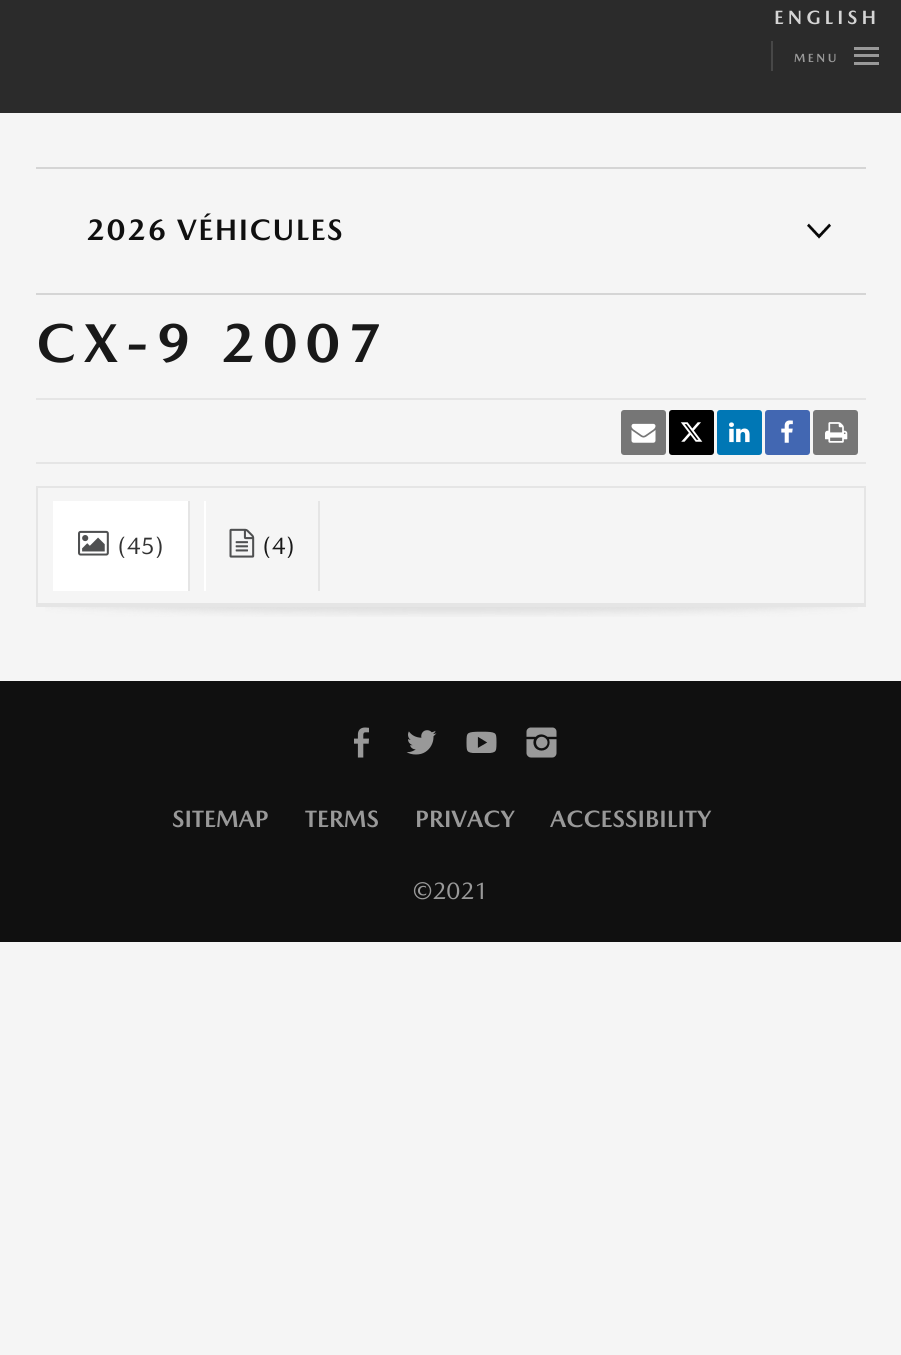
#include <cairo.h>
#include <math.h>
#include <stddef.h>

static cairo_t *ctx;

static void use_color(int r, int g, int b) {
    cairo_set_source_rgb(ctx, r / 255.0, g / 255.0, b / 255.0);
}

static void spaced_text(double x, double y, const char *s, double letter, double word) {
    cairo_move_to(ctx, x, y);
    while (*s) {
        char ch[5] = {0};
        int n = 0;
        do ch[n++] = *s++; while ((*s & 0xC0) == 0x80);
        cairo_show_text(ctx, ch);
        cairo_rel_move_to(ctx, letter + word * (*ch == ' '), 0);
    }
}

static void round_rect(double x, double y, double w, double h, double r) {
    cairo_new_sub_path(ctx);
    cairo_arc(ctx, x + w - r, y + h - r, r, 0, M_PI / 2);
    cairo_arc(ctx, x + r, y + h - r, r, M_PI / 2, M_PI);
    cairo_arc(ctx, x + r, y + r, r, M_PI, 1.5 * M_PI);
    cairo_arc(ctx, x + w - r, y + r, r, 1.5 * M_PI, 2 * M_PI);
    cairo_close_path(ctx);
}

static void picture(const char *path, double x, double y, double w, double h) {
    cairo_surface_t *image = cairo_image_surface_create_from_png(path);
    cairo_save(ctx);
    cairo_set_source_surface(ctx, image, x, y);
    cairo_rectangle(ctx, x, y, w, h);
    cairo_fill(ctx);
    cairo_restore(ctx);
    cairo_surface_destroy(image);
}

int main(void) {
    cairo_surface_t *surface = cairo_image_surface_create(CAIRO_FORMAT_RGB24, 901, 1355);
    ctx = cairo_create(surface);
    cairo_font_options_t *options = cairo_font_options_create();
    cairo_font_options_set_hint_metrics(options, CAIRO_HINT_METRICS_OFF);
    cairo_font_options_set_hint_style(options, CAIRO_HINT_STYLE_NONE);
    cairo_set_font_options(ctx, options);
    cairo_set_miter_limit(ctx, 4);
    use_color(245, 245, 245);
    cairo_paint(ctx);
    use_color(43, 43, 43);
    cairo_rectangle(ctx, 0, 0, 901, 113);
    cairo_fill(ctx);
    cairo_select_font_face(ctx, "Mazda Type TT", CAIRO_FONT_SLANT_NORMAL, CAIRO_FONT_WEIGHT_BOLD);
    cairo_set_font_size(ctx, 19.5);
    use_color(213, 213, 213);
    spaced_text(774, 24, "ENGLISH", 4, 0);
    use_color(71, 71, 71);
    cairo_rectangle(ctx, 771, 41, 2, 30);
    cairo_fill(ctx);
    cairo_set_font_size(ctx, 12);
    use_color(153, 153, 153);
    spaced_text(794, 62, "MENU", 2.5, 0);
    cairo_rectangle(ctx, 854, 47, 25, 3);
    cairo_fill(ctx);
    cairo_rectangle(ctx, 854, 54, 25, 3);
    cairo_fill(ctx);
    cairo_rectangle(ctx, 854, 62, 25, 3);
    cairo_fill(ctx);
    use_color(213, 213, 213);
    cairo_rectangle(ctx, 36, 167, 830, 2);
    cairo_fill(ctx);
    cairo_rectangle(ctx, 36, 293, 830, 2);
    cairo_fill(ctx);
    cairo_set_font_size(ctx, 30);
    use_color(16, 16, 16);
    spaced_text(86, 240, "2026 VÉHICULES", 1.5, 0);
    picture("img1.png", 807, 223, 24, 16);
    cairo_set_font_size(ctx, 55.5);
    use_color(25, 25, 25);
    spaced_text(36, 362, "CX-9 2007", 7.5, 0);
    use_color(229, 229, 229);
    cairo_rectangle(ctx, 36, 398, 830, 2);
    cairo_fill(ctx);
    cairo_rectangle(ctx, 36, 462, 830, 2);
    cairo_fill(ctx);
    use_color(118, 118, 118);
    round_rect(621, 410, 45, 45, 3);
    cairo_fill(ctx);
    picture("img2.png", 631, 423, 25, 20);
    use_color(0, 0, 0);
    round_rect(669, 410, 45, 45, 3);
    cairo_fill(ctx);
    picture("img3.png", 680, 422, 23, 20);
    use_color(0, 119, 181);
    round_rect(717, 410, 45, 45, 3);
    cairo_fill(ctx);
    picture("img4.png", 729, 422, 21, 21);
    use_color(66, 103, 178);
    round_rect(765, 410, 45, 45, 3);
    cairo_fill(ctx);
    picture("img5.png", 781, 420, 12, 23);
    use_color(118, 118, 118);
    round_rect(813, 410, 45, 45, 3);
    cairo_fill(ctx);
    picture("img6.png", 825, 422, 23, 21);
    picture("img7.png", 45, 607, 813, 10);
    cairo_rectangle(ctx, 37, 487, 828, 117);
    use_color(229, 229, 229);
    cairo_stroke(ctx);
    use_color(255, 255, 255);
    cairo_rectangle(ctx, 53, 501, 135, 90);
    cairo_fill(ctx);
    use_color(229, 229, 229);
    cairo_rectangle(ctx, 188, 501, 2, 90);
    cairo_fill(ctx);
    picture("img8.png", 78, 530, 31, 26);
    cairo_select_font_face(ctx, "Mazda Type TT", CAIRO_FONT_SLANT_NORMAL, CAIRO_FONT_WEIGHT_NORMAL);
    cairo_set_font_size(ctx, 24);
    use_color(51, 51, 51);
    cairo_move_to(ctx, 118, 554);
    cairo_show_text(ctx, "(45)");
    use_color(229, 229, 229);
    cairo_rectangle(ctx, 318, 501, 2, 90);
    cairo_fill(ctx);
    use_color(255, 255, 255);
    cairo_rectangle(ctx, 204, 501, 2, 90);
    cairo_fill(ctx);
    picture("img9.png", 229, 528, 26, 30);
    use_color(25, 25, 25);
    cairo_move_to(ctx, 263, 554);
    cairo_show_text(ctx, "(4)");
    use_color(229, 229, 229);
    cairo_rectangle(ctx, 36, 605, 830, 2);
    cairo_fill(ctx);
    use_color(16, 16, 16);
    cairo_rectangle(ctx, 0, 681, 901, 261);
    cairo_fill(ctx);
    picture("img10.png", 354, 727, 15, 31);
    picture("img11.png", 406, 730, 31, 25);
    picture("img12.png", 466, 731, 31, 22);
    picture("img13.png", 526, 727, 31, 31);
    cairo_select_font_face(ctx, "Mazda Type TT", CAIRO_FONT_SLANT_NORMAL, CAIRO_FONT_WEIGHT_BOLD);
    use_color(153, 153, 153);
    cairo_move_to(ctx, 172, 827);
    cairo_show_text(ctx, "SITEMAP");
    cairo_move_to(ctx, 305, 827);
    cairo_show_text(ctx, "TERMS");
    cairo_move_to(ctx, 415, 827);
    cairo_show_text(ctx, "PRIVACY");
    cairo_move_to(ctx, 550, 827);
    cairo_show_text(ctx, "ACCESSIBILITY");
    cairo_select_font_face(ctx, "Mazda Type TT", CAIRO_FONT_SLANT_NORMAL, CAIRO_FONT_WEIGHT_NORMAL);
    cairo_move_to(ctx, 413, 899);
    cairo_show_text(ctx, "©2021");
    cairo_surface_write_to_png(surface, "result.png");
    cairo_font_options_destroy(options);
    cairo_destroy(ctx);
    cairo_surface_destroy(surface);
    return 0;
}
